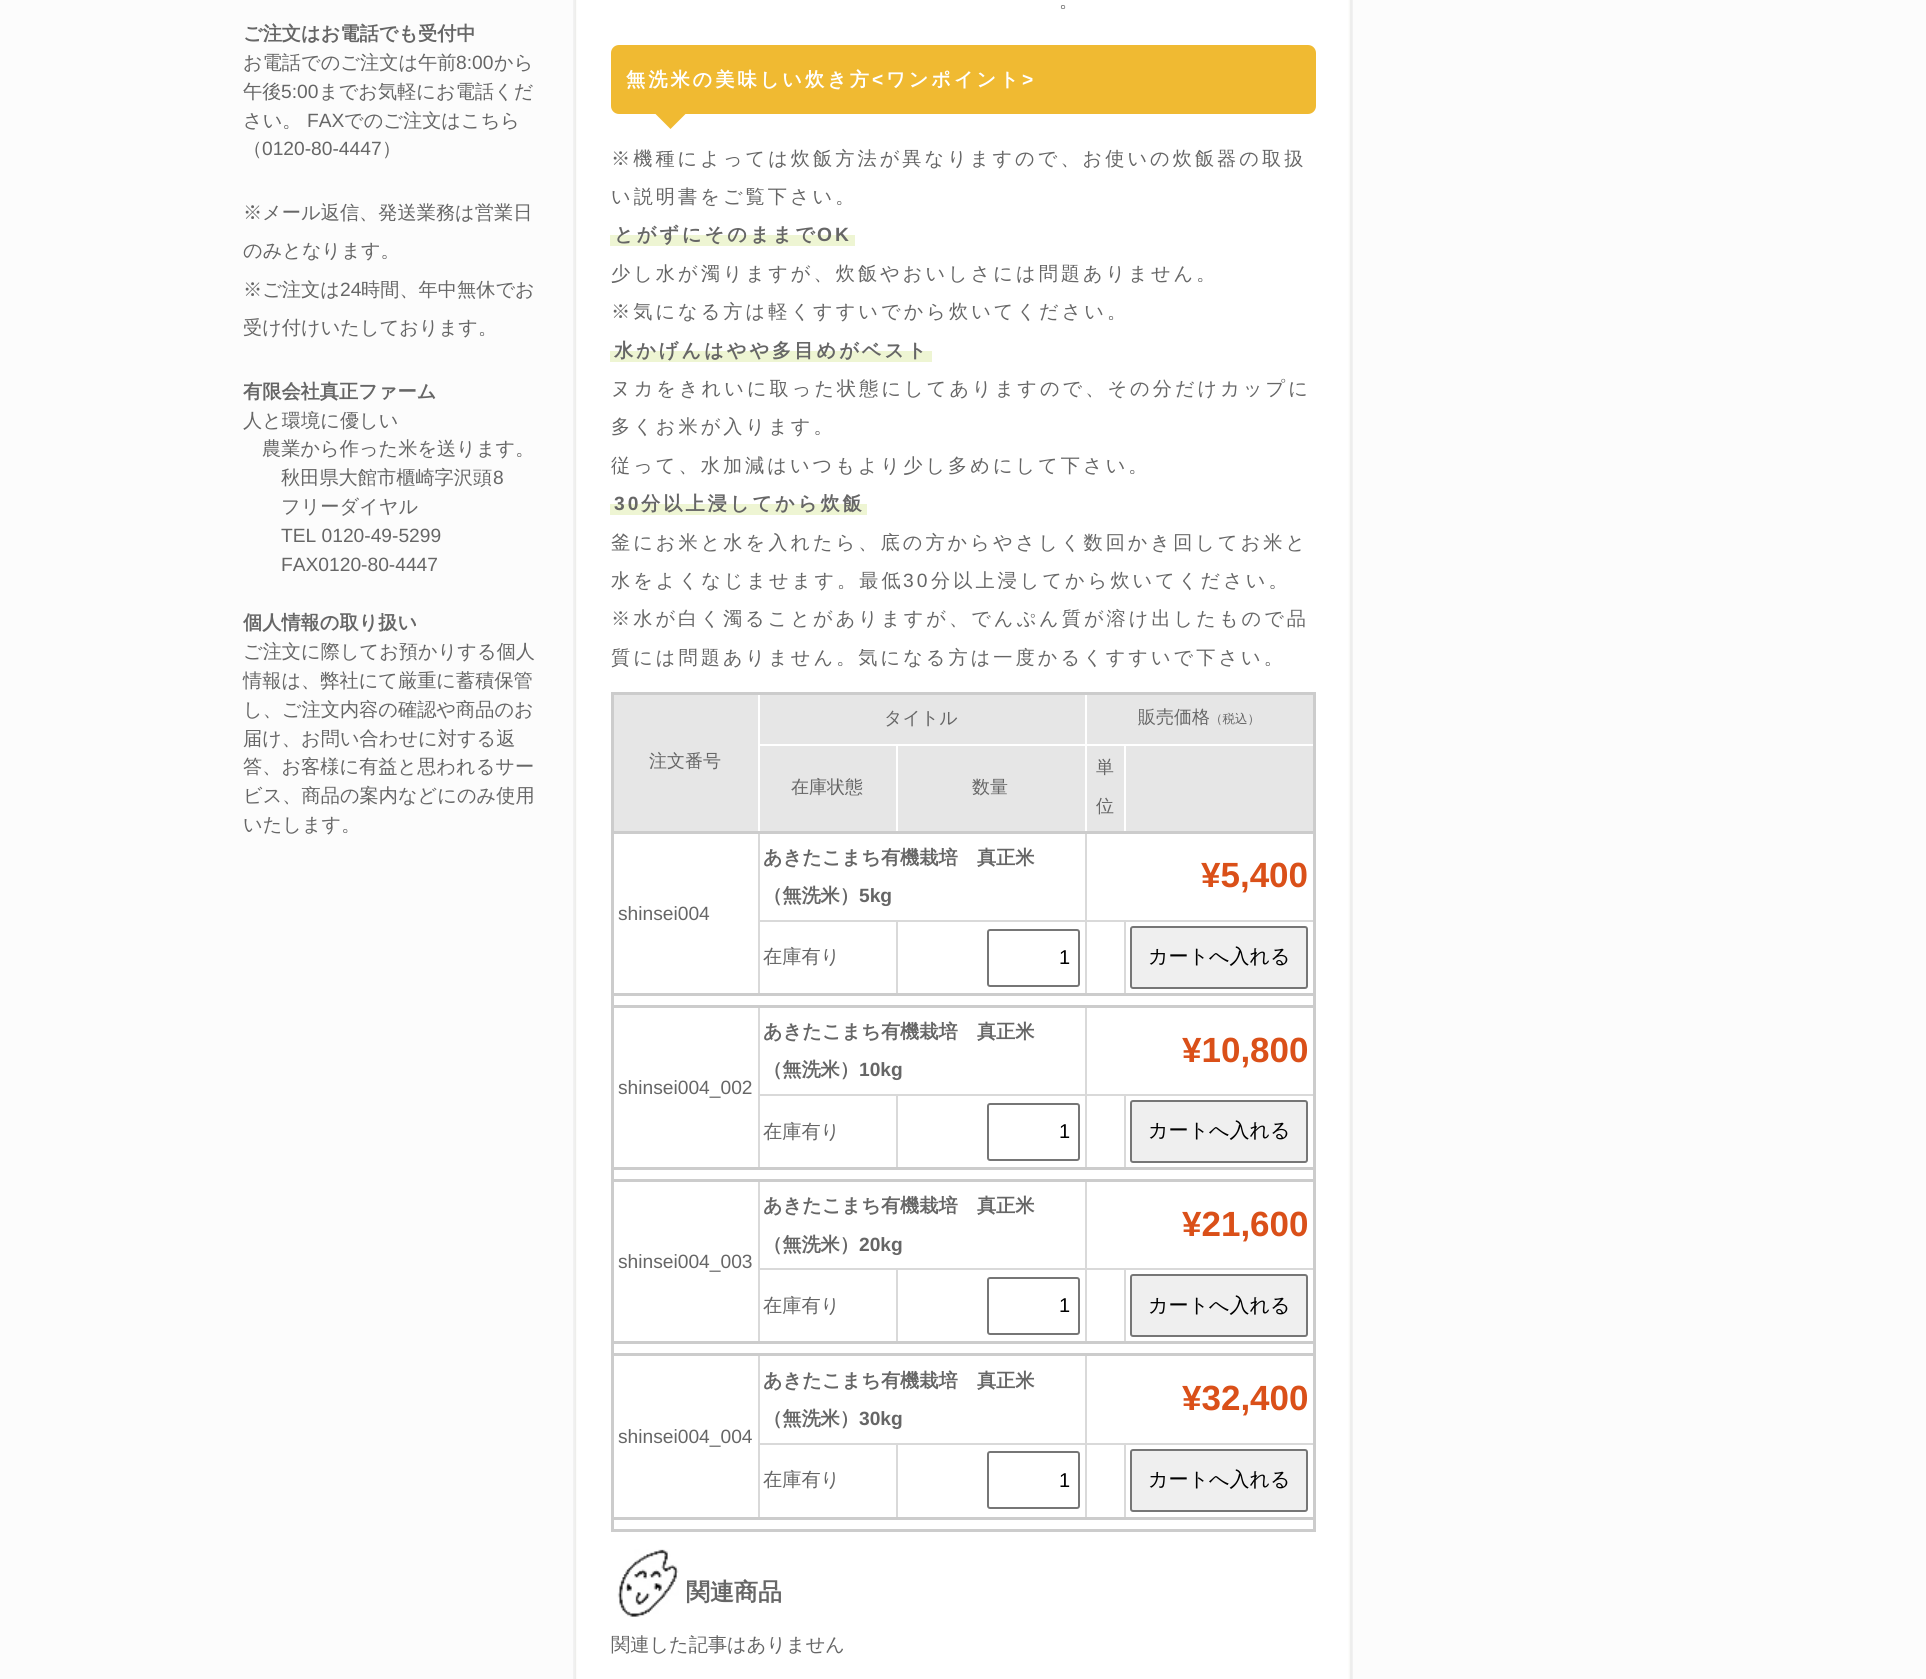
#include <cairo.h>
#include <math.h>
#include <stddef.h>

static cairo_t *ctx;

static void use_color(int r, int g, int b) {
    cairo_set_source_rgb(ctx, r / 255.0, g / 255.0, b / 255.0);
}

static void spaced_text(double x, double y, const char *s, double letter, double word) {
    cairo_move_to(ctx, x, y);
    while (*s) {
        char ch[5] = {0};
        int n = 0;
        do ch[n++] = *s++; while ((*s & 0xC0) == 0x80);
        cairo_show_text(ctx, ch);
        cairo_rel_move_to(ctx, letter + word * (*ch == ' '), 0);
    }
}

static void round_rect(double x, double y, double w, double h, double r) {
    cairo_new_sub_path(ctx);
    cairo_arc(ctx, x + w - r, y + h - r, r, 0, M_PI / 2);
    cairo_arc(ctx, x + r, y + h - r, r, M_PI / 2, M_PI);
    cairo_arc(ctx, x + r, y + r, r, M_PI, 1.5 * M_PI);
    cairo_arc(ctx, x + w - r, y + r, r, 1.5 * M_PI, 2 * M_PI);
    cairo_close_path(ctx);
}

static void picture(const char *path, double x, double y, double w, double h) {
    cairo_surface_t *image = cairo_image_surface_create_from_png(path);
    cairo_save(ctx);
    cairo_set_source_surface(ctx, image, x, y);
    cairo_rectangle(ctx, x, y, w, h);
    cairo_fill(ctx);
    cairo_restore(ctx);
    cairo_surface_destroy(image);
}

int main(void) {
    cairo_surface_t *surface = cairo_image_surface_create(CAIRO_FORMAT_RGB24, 1926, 1679);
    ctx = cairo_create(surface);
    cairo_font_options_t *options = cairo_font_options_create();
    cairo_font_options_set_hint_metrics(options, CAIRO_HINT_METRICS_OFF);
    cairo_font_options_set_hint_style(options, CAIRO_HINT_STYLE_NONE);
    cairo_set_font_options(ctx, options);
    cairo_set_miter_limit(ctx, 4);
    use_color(252, 252, 252);
    cairo_paint(ctx);
    cairo_select_font_face(ctx, "WenQuanYi Zen Hei", CAIRO_FONT_SLANT_NORMAL, CAIRO_FONT_WEIGHT_BOLD);
    cairo_set_font_size(ctx, 19.2);
    use_color(102, 102, 102);
    cairo_move_to(ctx, 243, 40);
    cairo_show_text(ctx, "ご注文はお電話でも受付中");
    cairo_select_font_face(ctx, "WenQuanYi Zen Hei Medium", CAIRO_FONT_SLANT_NORMAL, CAIRO_FONT_WEIGHT_NORMAL);
    cairo_move_to(ctx, 243, 69);
    cairo_show_text(ctx, "お電話でのご注文は午前");
    cairo_select_font_face(ctx, "Liberation Sans", CAIRO_FONT_SLANT_NORMAL, CAIRO_FONT_WEIGHT_NORMAL);
    cairo_move_to(ctx, 456, 69);
    cairo_show_text(ctx, "8:00");
    cairo_select_font_face(ctx, "WenQuanYi Zen Hei Medium", CAIRO_FONT_SLANT_NORMAL, CAIRO_FONT_WEIGHT_NORMAL);
    cairo_move_to(ctx, 494, 69);
    cairo_show_text(ctx, "から");
    cairo_move_to(ctx, 243, 98);
    cairo_show_text(ctx, "午後");
    cairo_select_font_face(ctx, "Liberation Sans", CAIRO_FONT_SLANT_NORMAL, CAIRO_FONT_WEIGHT_NORMAL);
    cairo_move_to(ctx, 281, 98);
    cairo_show_text(ctx, "5:00");
    cairo_select_font_face(ctx, "WenQuanYi Zen Hei Medium", CAIRO_FONT_SLANT_NORMAL, CAIRO_FONT_WEIGHT_NORMAL);
    cairo_move_to(ctx, 319, 98);
    cairo_show_text(ctx, "までお気軽にお電話くだ");
    cairo_move_to(ctx, 243, 127);
    cairo_show_text(ctx, "さい。");
    cairo_select_font_face(ctx, "Liberation Sans", CAIRO_FONT_SLANT_NORMAL, CAIRO_FONT_WEIGHT_NORMAL);
    cairo_move_to(ctx, 307, 127);
    cairo_show_text(ctx, "FAX");
    cairo_select_font_face(ctx, "WenQuanYi Zen Hei Medium", CAIRO_FONT_SLANT_NORMAL, CAIRO_FONT_WEIGHT_NORMAL);
    cairo_move_to(ctx, 344, 127);
    cairo_show_text(ctx, "でのご注文はこちら");
    cairo_move_to(ctx, 243, 155);
    cairo_show_text(ctx, "（");
    cairo_select_font_face(ctx, "Liberation Sans", CAIRO_FONT_SLANT_NORMAL, CAIRO_FONT_WEIGHT_NORMAL);
    cairo_move_to(ctx, 262, 155);
    cairo_show_text(ctx, "0120-80-4447");
    cairo_select_font_face(ctx, "WenQuanYi Zen Hei Medium", CAIRO_FONT_SLANT_NORMAL, CAIRO_FONT_WEIGHT_NORMAL);
    cairo_move_to(ctx, 382, 155);
    cairo_show_text(ctx, "）");
    cairo_move_to(ctx, 243, 219);
    cairo_show_text(ctx, "※メール返信、発送業務は営業日");
    cairo_move_to(ctx, 243, 257);
    cairo_show_text(ctx, "のみとなります。");
    cairo_move_to(ctx, 243, 296);
    cairo_show_text(ctx, "※ご注文は");
    cairo_select_font_face(ctx, "Liberation Sans", CAIRO_FONT_SLANT_NORMAL, CAIRO_FONT_WEIGHT_NORMAL);
    cairo_move_to(ctx, 340, 296);
    cairo_show_text(ctx, "24");
    cairo_select_font_face(ctx, "WenQuanYi Zen Hei Medium", CAIRO_FONT_SLANT_NORMAL, CAIRO_FONT_WEIGHT_NORMAL);
    cairo_move_to(ctx, 361, 296);
    cairo_show_text(ctx, "時間、年中無休でお");
    cairo_move_to(ctx, 243, 334);
    cairo_show_text(ctx, "受け付けいたしております。");
    cairo_select_font_face(ctx, "WenQuanYi Zen Hei", CAIRO_FONT_SLANT_NORMAL, CAIRO_FONT_WEIGHT_BOLD);
    cairo_move_to(ctx, 243, 398);
    cairo_show_text(ctx, "有限会社真正ファーム");
    cairo_select_font_face(ctx, "WenQuanYi Zen Hei Medium", CAIRO_FONT_SLANT_NORMAL, CAIRO_FONT_WEIGHT_NORMAL);
    cairo_move_to(ctx, 243, 427);
    cairo_show_text(ctx, "人と環境に優しい");
    cairo_move_to(ctx, 262, 455);
    cairo_show_text(ctx, "農業から作った米を送ります。");
    cairo_move_to(ctx, 281, 484);
    cairo_show_text(ctx, "秋田県大館市櫃崎字沢頭");
    cairo_select_font_face(ctx, "Liberation Sans", CAIRO_FONT_SLANT_NORMAL, CAIRO_FONT_WEIGHT_NORMAL);
    cairo_move_to(ctx, 493, 484);
    cairo_show_text(ctx, "8");
    cairo_select_font_face(ctx, "WenQuanYi Zen Hei Medium", CAIRO_FONT_SLANT_NORMAL, CAIRO_FONT_WEIGHT_NORMAL);
    cairo_move_to(ctx, 281, 513);
    cairo_show_text(ctx, "フリーダイヤル");
    cairo_select_font_face(ctx, "Liberation Sans", CAIRO_FONT_SLANT_NORMAL, CAIRO_FONT_WEIGHT_NORMAL);
    cairo_move_to(ctx, 281, 542);
    cairo_show_text(ctx, "TEL 0120-49-5299");
    cairo_move_to(ctx, 281, 571);
    cairo_show_text(ctx, "FAX0120-80-4447");
    cairo_select_font_face(ctx, "WenQuanYi Zen Hei", CAIRO_FONT_SLANT_NORMAL, CAIRO_FONT_WEIGHT_BOLD);
    cairo_move_to(ctx, 243, 629);
    cairo_show_text(ctx, "個人情報の取り扱い");
    cairo_select_font_face(ctx, "WenQuanYi Zen Hei Medium", CAIRO_FONT_SLANT_NORMAL, CAIRO_FONT_WEIGHT_NORMAL);
    cairo_move_to(ctx, 243, 658);
    cairo_show_text(ctx, "ご注文に際してお預かりする個人");
    cairo_move_to(ctx, 243, 687);
    cairo_show_text(ctx, "情報は、弊社にて厳重に蓄積保管");
    cairo_move_to(ctx, 243, 716);
    cairo_show_text(ctx, "し、ご注文内容の確認や商品のお");
    cairo_move_to(ctx, 243, 745);
    cairo_show_text(ctx, "届け、お問い合わせに対する返");
    cairo_move_to(ctx, 243, 773);
    cairo_show_text(ctx, "答、お客様に有益と思われるサー");
    cairo_move_to(ctx, 243, 802);
    cairo_show_text(ctx, "ビス、商品の案内などにのみ使用");
    cairo_move_to(ctx, 243, 831);
    cairo_show_text(ctx, "いたします。");
    picture("img1.png", 573, 0, 780, 1679);
    spaced_text(1059, 7, "。", 3, 0);
    use_color(240, 186, 50);
    round_rect(611, 45, 705, 69, 8);
    cairo_fill(ctx);
    cairo_select_font_face(ctx, "WenQuanYi Zen Hei", CAIRO_FONT_SLANT_NORMAL, CAIRO_FONT_WEIGHT_BOLD);
    use_color(255, 255, 255);
    spaced_text(626, 86, "無洗米の美味しい炊き方", 3, 0);
    cairo_select_font_face(ctx, "Liberation Sans", CAIRO_FONT_SLANT_NORMAL, CAIRO_FONT_WEIGHT_BOLD);
    spaced_text(872, 86, "<", 3, 0);
    cairo_select_font_face(ctx, "WenQuanYi Zen Hei", CAIRO_FONT_SLANT_NORMAL, CAIRO_FONT_WEIGHT_BOLD);
    spaced_text(886, 86, "ワンポイント", 3, 0);
    cairo_select_font_face(ctx, "Liberation Sans", CAIRO_FONT_SLANT_NORMAL, CAIRO_FONT_WEIGHT_BOLD);
    spaced_text(1022, 86, ">", 3, 0);
    use_color(240, 186, 50);
    cairo_new_path(ctx);
    cairo_move_to(ctx, 655.5, 114);
    cairo_line_to(ctx, 685.5, 114);
    cairo_line_to(ctx, 670.5, 129);
    cairo_close_path(ctx);
    cairo_fill(ctx);
    cairo_select_font_face(ctx, "WenQuanYi Zen Hei Medium", CAIRO_FONT_SLANT_NORMAL, CAIRO_FONT_WEIGHT_NORMAL);
    use_color(102, 102, 102);
    spaced_text(611, 165, "※機種によっては炊飯方法が異なりますので、お使いの炊飯器の取扱", 3, 0);
    spaced_text(611, 203, "い説明書をご覧下さい。", 3, 0);
    use_color(238, 245, 211);
    cairo_rectangle(ctx, 610, 235, 245, 11);
    cairo_fill(ctx);
    cairo_select_font_face(ctx, "WenQuanYi Zen Hei", CAIRO_FONT_SLANT_NORMAL, CAIRO_FONT_WEIGHT_BOLD);
    use_color(102, 102, 102);
    spaced_text(614, 241, "とがずにそのままで", 3, 0);
    cairo_select_font_face(ctx, "Liberation Sans", CAIRO_FONT_SLANT_NORMAL, CAIRO_FONT_WEIGHT_BOLD);
    spaced_text(817, 241, "OK", 3, 0);
    cairo_select_font_face(ctx, "WenQuanYi Zen Hei Medium", CAIRO_FONT_SLANT_NORMAL, CAIRO_FONT_WEIGHT_NORMAL);
    spaced_text(611, 280, "少し水が濁りますが、炊飯やおいしさには問題ありません。", 3, 0);
    spaced_text(611, 318, "※気になる方は軽くすすいでから炊いてください。", 3, 0);
    use_color(238, 245, 211);
    cairo_rectangle(ctx, 610, 351, 322, 11);
    cairo_fill(ctx);
    cairo_select_font_face(ctx, "WenQuanYi Zen Hei", CAIRO_FONT_SLANT_NORMAL, CAIRO_FONT_WEIGHT_BOLD);
    use_color(102, 102, 102);
    spaced_text(614, 357, "水かげんはやや多目めがベスト", 3, 0);
    cairo_select_font_face(ctx, "WenQuanYi Zen Hei Medium", CAIRO_FONT_SLANT_NORMAL, CAIRO_FONT_WEIGHT_NORMAL);
    spaced_text(611, 395, "ヌカをきれいに取った状態にしてありますので、その分だけカップに", 3, 0);
    spaced_text(611, 433, "多くお米が入ります。", 3, 0);
    spaced_text(611, 472, "従って、水加減はいつもより少し多めにして下さい。", 3, 0);
    use_color(238, 245, 211);
    cairo_rectangle(ctx, 610, 504, 257, 11);
    cairo_fill(ctx);
    cairo_select_font_face(ctx, "Liberation Sans", CAIRO_FONT_SLANT_NORMAL, CAIRO_FONT_WEIGHT_BOLD);
    use_color(102, 102, 102);
    spaced_text(614, 510, "30", 3, 0);
    cairo_select_font_face(ctx, "WenQuanYi Zen Hei", CAIRO_FONT_SLANT_NORMAL, CAIRO_FONT_WEIGHT_BOLD);
    spaced_text(641, 510, "分以上浸してから炊飯", 3, 0);
    cairo_select_font_face(ctx, "WenQuanYi Zen Hei Medium", CAIRO_FONT_SLANT_NORMAL, CAIRO_FONT_WEIGHT_NORMAL);
    spaced_text(611, 549, "釜にお米と水を入れたら、底の方からやさしく数回かき回してお米と", 3, 0);
    spaced_text(611, 587, "水をよくなじませます。最低", 3, 0);
    cairo_select_font_face(ctx, "Liberation Sans", CAIRO_FONT_SLANT_NORMAL, CAIRO_FONT_WEIGHT_NORMAL);
    spaced_text(903, 587, "30", 3, 0);
    cairo_select_font_face(ctx, "WenQuanYi Zen Hei Medium", CAIRO_FONT_SLANT_NORMAL, CAIRO_FONT_WEIGHT_NORMAL);
    spaced_text(931, 587, "分以上浸してから炊いてください。", 3, 0);
    spaced_text(611, 625, "※水が白く濁ることがありますが、でんぷん質が溶け出したもので品", 3, 0);
    spaced_text(611, 664, "質には問題ありません。気になる方は一度かるくすすいで下さい。", 3, 0);
    use_color(204, 204, 204);
    cairo_rectangle(ctx, 611, 692, 705, 3);
    cairo_fill(ctx);
    use_color(217, 217, 217);
    cairo_rectangle(ctx, 1085, 920, 2, 76);
    cairo_fill(ctx);
    cairo_rectangle(ctx, 1124, 920, 2, 76);
    cairo_fill(ctx);
    cairo_rectangle(ctx, 1085, 920, 231, 2);
    cairo_fill(ctx);
    cairo_rectangle(ctx, 1085, 1094, 2, 76);
    cairo_fill(ctx);
    cairo_rectangle(ctx, 1124, 1094, 2, 76);
    cairo_fill(ctx);
    cairo_rectangle(ctx, 1085, 1094, 231, 2);
    cairo_fill(ctx);
    cairo_rectangle(ctx, 1085, 1268, 2, 76);
    cairo_fill(ctx);
    cairo_rectangle(ctx, 1124, 1268, 2, 76);
    cairo_fill(ctx);
    cairo_rectangle(ctx, 1085, 1268, 231, 2);
    cairo_fill(ctx);
    cairo_rectangle(ctx, 1085, 1443, 2, 75);
    cairo_fill(ctx);
    cairo_rectangle(ctx, 1124, 1443, 2, 75);
    cairo_fill(ctx);
    cairo_rectangle(ctx, 1085, 1443, 231, 2);
    cairo_fill(ctx);
    use_color(204, 204, 204);
    cairo_rectangle(ctx, 1313, 692, 3, 840);
    cairo_fill(ctx);
    cairo_rectangle(ctx, 611, 1529, 705, 3);
    cairo_fill(ctx);
    cairo_rectangle(ctx, 611, 692, 3, 840);
    cairo_fill(ctx);
    use_color(230, 230, 230);
    cairo_rectangle(ctx, 760, 695, 325, 49);
    cairo_fill(ctx);
    cairo_set_font_size(ctx, 18);
    use_color(102, 102, 102);
    cairo_move_to(ctx, 884, 724);
    cairo_show_text(ctx, "タイトル");
    use_color(230, 230, 230);
    cairo_rectangle(ctx, 1087, 695, 226, 49);
    cairo_fill(ctx);
    use_color(102, 102, 102);
    cairo_move_to(ctx, 1138, 723);
    cairo_show_text(ctx, "販売価格");
    cairo_set_font_size(ctx, 12.5);
    cairo_move_to(ctx, 1210, 723);
    cairo_show_text(ctx, "（税込）");
    use_color(230, 230, 230);
    cairo_rectangle(ctx, 614, 695, 144, 136);
    cairo_fill(ctx);
    use_color(217, 217, 217);
    cairo_rectangle(ctx, 1085, 831, 2, 90);
    cairo_fill(ctx);
    cairo_rectangle(ctx, 896, 920, 2, 76);
    cairo_fill(ctx);
    cairo_rectangle(ctx, 758, 920, 328, 2);
    cairo_fill(ctx);
    cairo_rectangle(ctx, 758, 831, 2, 165);
    cairo_fill(ctx);
    use_color(255, 255, 255);
    cairo_rectangle(ctx, 758, 831, 2, 2);
    cairo_fill(ctx);
    cairo_set_font_size(ctx, 18);
    use_color(102, 102, 102);
    cairo_move_to(ctx, 649, 767);
    cairo_show_text(ctx, "注文番号");
    use_color(230, 230, 230);
    cairo_rectangle(ctx, 1126, 746, 187, 85);
    cairo_fill(ctx);
    use_color(255, 255, 255);
    cairo_rectangle(ctx, 1085, 831, 2, 2);
    cairo_fill(ctx);
    use_color(204, 204, 204);
    cairo_rectangle(ctx, 611, 831, 705, 3);
    cairo_fill(ctx);
    use_color(230, 230, 230);
    cairo_rectangle(ctx, 760, 746, 136, 85);
    cairo_fill(ctx);
    use_color(102, 102, 102);
    cairo_move_to(ctx, 791, 793);
    cairo_show_text(ctx, "在庫状態");
    use_color(230, 230, 230);
    cairo_rectangle(ctx, 898, 746, 187, 85);
    cairo_fill(ctx);
    use_color(102, 102, 102);
    cairo_move_to(ctx, 972, 793);
    cairo_show_text(ctx, "数量");
    use_color(230, 230, 230);
    cairo_rectangle(ctx, 1087, 746, 37, 85);
    cairo_fill(ctx);
    use_color(102, 102, 102);
    cairo_move_to(ctx, 1096, 773);
    cairo_show_text(ctx, "単");
    cairo_move_to(ctx, 1096, 812);
    cairo_show_text(ctx, "位");
    cairo_select_font_face(ctx, "WenQuanYi Zen Hei", CAIRO_FONT_SLANT_NORMAL, CAIRO_FONT_WEIGHT_BOLD);
    cairo_set_font_size(ctx, 19.2);
    cairo_move_to(ctx, 763, 864);
    cairo_show_text(ctx, "あきたこまち有機栽培　真正米");
    cairo_move_to(ctx, 763, 902);
    cairo_show_text(ctx, "（無洗米）");
    cairo_select_font_face(ctx, "Liberation Sans", CAIRO_FONT_SLANT_NORMAL, CAIRO_FONT_WEIGHT_BOLD);
    cairo_move_to(ctx, 859, 902);
    cairo_show_text(ctx, "5kg");
    cairo_set_font_size(ctx, 35);
    use_color(218, 80, 25);
    cairo_move_to(ctx, 1201, 887);
    cairo_show_text(ctx, "¥5,400");
    cairo_select_font_face(ctx, "Liberation Sans", CAIRO_FONT_SLANT_NORMAL, CAIRO_FONT_WEIGHT_NORMAL);
    cairo_set_font_size(ctx, 19.2);
    use_color(102, 102, 102);
    cairo_move_to(ctx, 618, 920);
    cairo_show_text(ctx, "shinsei004");
    cairo_select_font_face(ctx, "WenQuanYi Zen Hei Medium", CAIRO_FONT_SLANT_NORMAL, CAIRO_FONT_WEIGHT_NORMAL);
    cairo_move_to(ctx, 763, 963);
    cairo_show_text(ctx, "在庫有り");
    round_rect(988, 930, 91, 56, 2);
    use_color(118, 118, 118);
    cairo_stroke(ctx);
    cairo_select_font_face(ctx, "Liberation Sans", CAIRO_FONT_SLANT_NORMAL, CAIRO_FONT_WEIGHT_NORMAL);
    cairo_set_font_size(ctx, 20);
    use_color(0, 0, 0);
    cairo_move_to(ctx, 1059, 964);
    cairo_show_text(ctx, "1");
    use_color(204, 204, 204);
    cairo_rectangle(ctx, 611, 993, 705, 3);
    cairo_fill(ctx);
    use_color(239, 239, 239);
    round_rect(1131, 927, 176, 61, 2);
    cairo_fill_preserve(ctx);
    use_color(118, 118, 118);
    cairo_stroke(ctx);
    cairo_select_font_face(ctx, "WenQuanYi Zen Hei Medium", CAIRO_FONT_SLANT_NORMAL, CAIRO_FONT_WEIGHT_NORMAL);
    use_color(0, 0, 0);
    cairo_move_to(ctx, 1148, 963);
    cairo_show_text(ctx, "カートへ入れる");
    use_color(217, 217, 217);
    cairo_rectangle(ctx, 1085, 1007, 2, 88);
    cairo_fill(ctx);
    cairo_rectangle(ctx, 896, 1094, 2, 76);
    cairo_fill(ctx);
    cairo_rectangle(ctx, 758, 1094, 328, 2);
    cairo_fill(ctx);
    cairo_rectangle(ctx, 758, 1007, 2, 163);
    cairo_fill(ctx);
    use_color(204, 204, 204);
    cairo_rectangle(ctx, 611, 1005, 705, 3);
    cairo_fill(ctx);
    cairo_select_font_face(ctx, "WenQuanYi Zen Hei", CAIRO_FONT_SLANT_NORMAL, CAIRO_FONT_WEIGHT_BOLD);
    cairo_set_font_size(ctx, 19.2);
    use_color(102, 102, 102);
    cairo_move_to(ctx, 763, 1038);
    cairo_show_text(ctx, "あきたこまち有機栽培　真正米");
    cairo_move_to(ctx, 763, 1076);
    cairo_show_text(ctx, "（無洗米）");
    cairo_select_font_face(ctx, "Liberation Sans", CAIRO_FONT_SLANT_NORMAL, CAIRO_FONT_WEIGHT_BOLD);
    cairo_move_to(ctx, 859, 1076);
    cairo_show_text(ctx, "10kg");
    cairo_set_font_size(ctx, 35);
    use_color(218, 80, 25);
    cairo_move_to(ctx, 1182, 1062);
    cairo_show_text(ctx, "¥10,800");
    cairo_select_font_face(ctx, "Liberation Sans", CAIRO_FONT_SLANT_NORMAL, CAIRO_FONT_WEIGHT_NORMAL);
    cairo_set_font_size(ctx, 19.2);
    use_color(102, 102, 102);
    cairo_move_to(ctx, 618, 1094);
    cairo_show_text(ctx, "shinsei004_002");
    cairo_select_font_face(ctx, "WenQuanYi Zen Hei Medium", CAIRO_FONT_SLANT_NORMAL, CAIRO_FONT_WEIGHT_NORMAL);
    cairo_move_to(ctx, 763, 1138);
    cairo_show_text(ctx, "在庫有り");
    round_rect(988, 1104, 91, 56, 2);
    use_color(118, 118, 118);
    cairo_stroke(ctx);
    cairo_select_font_face(ctx, "Liberation Sans", CAIRO_FONT_SLANT_NORMAL, CAIRO_FONT_WEIGHT_NORMAL);
    cairo_set_font_size(ctx, 20);
    use_color(0, 0, 0);
    cairo_move_to(ctx, 1059, 1138);
    cairo_show_text(ctx, "1");
    use_color(204, 204, 204);
    cairo_rectangle(ctx, 611, 1167, 705, 3);
    cairo_fill(ctx);
    use_color(239, 239, 239);
    round_rect(1131, 1101, 176, 61, 2);
    cairo_fill_preserve(ctx);
    use_color(118, 118, 118);
    cairo_stroke(ctx);
    cairo_select_font_face(ctx, "WenQuanYi Zen Hei Medium", CAIRO_FONT_SLANT_NORMAL, CAIRO_FONT_WEIGHT_NORMAL);
    use_color(0, 0, 0);
    cairo_move_to(ctx, 1148, 1137);
    cairo_show_text(ctx, "カートへ入れる");
    use_color(217, 217, 217);
    cairo_rectangle(ctx, 1085, 1181, 2, 88);
    cairo_fill(ctx);
    cairo_rectangle(ctx, 896, 1268, 2, 76);
    cairo_fill(ctx);
    cairo_rectangle(ctx, 758, 1268, 328, 2);
    cairo_fill(ctx);
    cairo_rectangle(ctx, 758, 1181, 2, 163);
    cairo_fill(ctx);
    use_color(204, 204, 204);
    cairo_rectangle(ctx, 611, 1179, 705, 3);
    cairo_fill(ctx);
    cairo_select_font_face(ctx, "WenQuanYi Zen Hei", CAIRO_FONT_SLANT_NORMAL, CAIRO_FONT_WEIGHT_BOLD);
    cairo_set_font_size(ctx, 19.2);
    use_color(102, 102, 102);
    cairo_move_to(ctx, 763, 1212);
    cairo_show_text(ctx, "あきたこまち有機栽培　真正米");
    cairo_move_to(ctx, 763, 1251);
    cairo_show_text(ctx, "（無洗米）");
    cairo_select_font_face(ctx, "Liberation Sans", CAIRO_FONT_SLANT_NORMAL, CAIRO_FONT_WEIGHT_BOLD);
    cairo_move_to(ctx, 859, 1251);
    cairo_show_text(ctx, "20kg");
    cairo_set_font_size(ctx, 35);
    use_color(218, 80, 25);
    cairo_move_to(ctx, 1182, 1236);
    cairo_show_text(ctx, "¥21,600");
    cairo_select_font_face(ctx, "Liberation Sans", CAIRO_FONT_SLANT_NORMAL, CAIRO_FONT_WEIGHT_NORMAL);
    cairo_set_font_size(ctx, 19.2);
    use_color(102, 102, 102);
    cairo_move_to(ctx, 618, 1268);
    cairo_show_text(ctx, "shinsei004_003");
    cairo_select_font_face(ctx, "WenQuanYi Zen Hei Medium", CAIRO_FONT_SLANT_NORMAL, CAIRO_FONT_WEIGHT_NORMAL);
    cairo_move_to(ctx, 763, 1312);
    cairo_show_text(ctx, "在庫有り");
    round_rect(988, 1278, 91, 56, 2);
    use_color(118, 118, 118);
    cairo_stroke(ctx);
    cairo_select_font_face(ctx, "Liberation Sans", CAIRO_FONT_SLANT_NORMAL, CAIRO_FONT_WEIGHT_NORMAL);
    cairo_set_font_size(ctx, 20);
    use_color(0, 0, 0);
    cairo_move_to(ctx, 1059, 1312);
    cairo_show_text(ctx, "1");
    use_color(204, 204, 204);
    cairo_rectangle(ctx, 611, 1341, 705, 3);
    cairo_fill(ctx);
    use_color(239, 239, 239);
    round_rect(1131, 1275, 176, 61, 2);
    cairo_fill_preserve(ctx);
    use_color(118, 118, 118);
    cairo_stroke(ctx);
    cairo_select_font_face(ctx, "WenQuanYi Zen Hei Medium", CAIRO_FONT_SLANT_NORMAL, CAIRO_FONT_WEIGHT_NORMAL);
    use_color(0, 0, 0);
    cairo_move_to(ctx, 1148, 1312);
    cairo_show_text(ctx, "カートへ入れる");
    use_color(217, 217, 217);
    cairo_rectangle(ctx, 1085, 1355, 2, 90);
    cairo_fill(ctx);
    cairo_rectangle(ctx, 896, 1443, 2, 75);
    cairo_fill(ctx);
    cairo_rectangle(ctx, 758, 1443, 328, 2);
    cairo_fill(ctx);
    cairo_rectangle(ctx, 758, 1355, 2, 163);
    cairo_fill(ctx);
    use_color(204, 204, 204);
    cairo_rectangle(ctx, 611, 1353, 705, 3);
    cairo_fill(ctx);
    cairo_select_font_face(ctx, "WenQuanYi Zen Hei", CAIRO_FONT_SLANT_NORMAL, CAIRO_FONT_WEIGHT_BOLD);
    cairo_set_font_size(ctx, 19.2);
    use_color(102, 102, 102);
    cairo_move_to(ctx, 763, 1387);
    cairo_show_text(ctx, "あきたこまち有機栽培　真正米");
    cairo_move_to(ctx, 763, 1425);
    cairo_show_text(ctx, "（無洗米）");
    cairo_select_font_face(ctx, "Liberation Sans", CAIRO_FONT_SLANT_NORMAL, CAIRO_FONT_WEIGHT_BOLD);
    cairo_move_to(ctx, 859, 1425);
    cairo_show_text(ctx, "30kg");
    cairo_set_font_size(ctx, 35);
    use_color(218, 80, 25);
    cairo_move_to(ctx, 1182, 1410);
    cairo_show_text(ctx, "¥32,400");
    cairo_select_font_face(ctx, "Liberation Sans", CAIRO_FONT_SLANT_NORMAL, CAIRO_FONT_WEIGHT_NORMAL);
    cairo_set_font_size(ctx, 19.2);
    use_color(102, 102, 102);
    cairo_move_to(ctx, 618, 1443);
    cairo_show_text(ctx, "shinsei004_004");
    cairo_select_font_face(ctx, "WenQuanYi Zen Hei Medium", CAIRO_FONT_SLANT_NORMAL, CAIRO_FONT_WEIGHT_NORMAL);
    cairo_move_to(ctx, 763, 1486);
    cairo_show_text(ctx, "在庫有り");
    round_rect(988, 1452, 91, 56, 2);
    use_color(118, 118, 118);
    cairo_stroke(ctx);
    cairo_select_font_face(ctx, "Liberation Sans", CAIRO_FONT_SLANT_NORMAL, CAIRO_FONT_WEIGHT_NORMAL);
    cairo_set_font_size(ctx, 20);
    use_color(0, 0, 0);
    cairo_move_to(ctx, 1059, 1487);
    cairo_show_text(ctx, "1");
    use_color(204, 204, 204);
    cairo_rectangle(ctx, 611, 1517, 705, 3);
    cairo_fill(ctx);
    use_color(239, 239, 239);
    round_rect(1131, 1450, 176, 61, 2);
    cairo_fill_preserve(ctx);
    use_color(118, 118, 118);
    cairo_stroke(ctx);
    cairo_select_font_face(ctx, "WenQuanYi Zen Hei Medium", CAIRO_FONT_SLANT_NORMAL, CAIRO_FONT_WEIGHT_NORMAL);
    use_color(0, 0, 0);
    cairo_move_to(ctx, 1148, 1486);
    cairo_show_text(ctx, "カートへ入れる");
    picture("img2.png", 617, 1549, 62, 68);
    cairo_select_font_face(ctx, "WenQuanYi Zen Hei", CAIRO_FONT_SLANT_NORMAL, CAIRO_FONT_WEIGHT_BOLD);
    cairo_set_font_size(ctx, 24);
    use_color(102, 102, 102);
    cairo_move_to(ctx, 686, 1600);
    cairo_show_text(ctx, "関連商品");
    cairo_select_font_face(ctx, "WenQuanYi Zen Hei Medium", CAIRO_FONT_SLANT_NORMAL, CAIRO_FONT_WEIGHT_NORMAL);
    cairo_set_font_size(ctx, 19.2);
    cairo_move_to(ctx, 611, 1651);
    cairo_show_text(ctx, "関連した記事はありません");
    cairo_surface_write_to_png(surface, "result.png");
    cairo_font_options_destroy(options);
    cairo_destroy(ctx);
    cairo_surface_destroy(surface);
    return 0;
}
